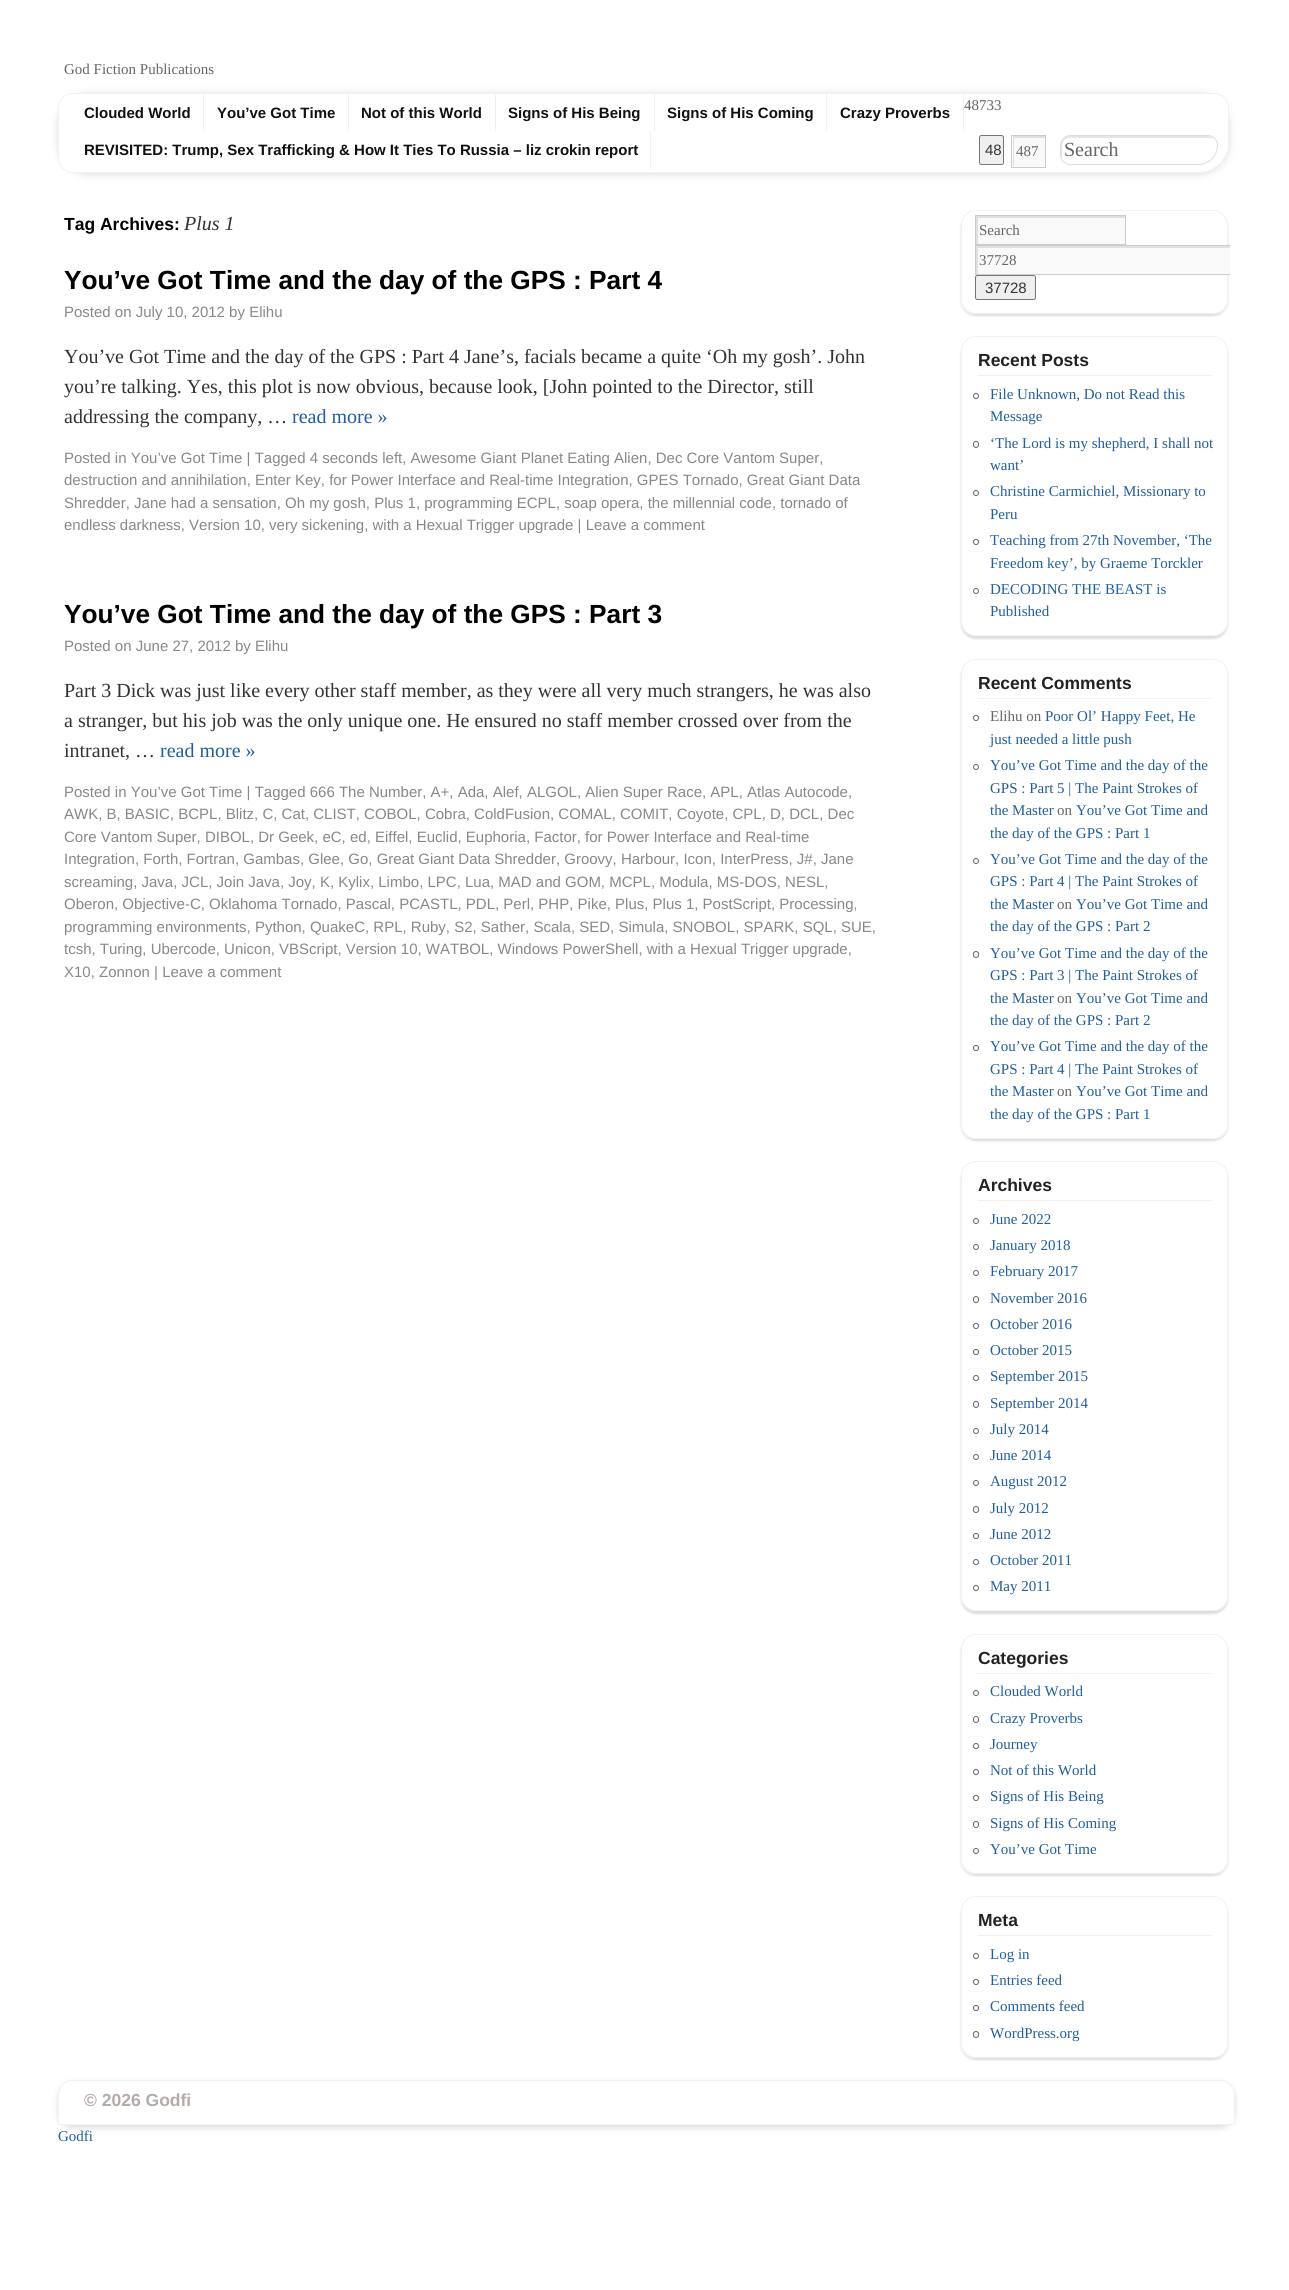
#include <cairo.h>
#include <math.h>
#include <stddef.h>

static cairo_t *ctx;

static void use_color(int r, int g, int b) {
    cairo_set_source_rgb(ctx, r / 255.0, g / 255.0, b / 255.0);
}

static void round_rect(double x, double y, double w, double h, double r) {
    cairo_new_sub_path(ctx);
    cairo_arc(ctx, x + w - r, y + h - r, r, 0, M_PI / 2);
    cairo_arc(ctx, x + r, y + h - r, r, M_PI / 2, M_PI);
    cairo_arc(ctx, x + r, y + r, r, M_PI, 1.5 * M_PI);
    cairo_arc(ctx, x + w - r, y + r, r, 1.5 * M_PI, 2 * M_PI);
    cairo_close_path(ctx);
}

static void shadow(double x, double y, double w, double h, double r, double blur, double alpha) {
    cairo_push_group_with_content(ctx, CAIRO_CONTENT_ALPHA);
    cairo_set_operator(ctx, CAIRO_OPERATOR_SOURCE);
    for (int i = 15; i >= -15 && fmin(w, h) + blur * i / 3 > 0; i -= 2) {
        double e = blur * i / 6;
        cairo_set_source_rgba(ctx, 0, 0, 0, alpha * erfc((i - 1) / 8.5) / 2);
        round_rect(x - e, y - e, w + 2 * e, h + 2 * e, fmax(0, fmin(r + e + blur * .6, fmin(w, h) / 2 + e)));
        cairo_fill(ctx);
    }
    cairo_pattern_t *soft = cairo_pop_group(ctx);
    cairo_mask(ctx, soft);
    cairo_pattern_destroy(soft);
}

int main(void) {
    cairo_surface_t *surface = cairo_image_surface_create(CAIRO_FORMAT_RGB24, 1289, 2290);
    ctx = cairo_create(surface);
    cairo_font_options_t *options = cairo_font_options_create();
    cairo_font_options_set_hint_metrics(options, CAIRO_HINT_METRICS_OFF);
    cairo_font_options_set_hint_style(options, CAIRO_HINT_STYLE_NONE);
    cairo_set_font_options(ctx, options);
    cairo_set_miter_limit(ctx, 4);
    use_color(255, 255, 255);
    cairo_paint(ctx);
    cairo_select_font_face(ctx, "Liberation Serif", CAIRO_FONT_SLANT_NORMAL, CAIRO_FONT_WEIGHT_NORMAL);
    cairo_set_font_size(ctx, 15);
    use_color(102, 102, 102);
    cairo_move_to(ctx, 64, 74);
    cairo_show_text(ctx, "God Fiction Publications");
    use_color(221, 221, 221);
    shadow(58, 94, 1171, 80, 30, 4, 1);
    use_color(255, 255, 255);
    cairo_new_path(ctx);
    cairo_move_to(ctx, 73, 93.5);
    cairo_line_to(ctx, 1214, 93.5);
    cairo_curve_to(ctx, 1222, 93.5, 1228.5, 100, 1228.5, 108);
    cairo_line_to(ctx, 1228.5, 143);
    cairo_curve_to(ctx, 1228.5, 159.5, 1215.5, 172.5, 1199, 172.5);
    cairo_line_to(ctx, 73, 172.5);
    cairo_curve_to(ctx, 65, 172.5, 58.5, 166, 58.5, 158);
    cairo_line_to(ctx, 58.5, 108);
    cairo_curve_to(ctx, 58.5, 100, 65, 93.5, 73, 93.5);
    cairo_close_path(ctx);
    cairo_fill_preserve(ctx);
    use_color(241, 241, 241);
    cairo_set_line_width(ctx, 1);
    cairo_stroke(ctx);
    cairo_rectangle(ctx, 203, 94, 1, 37);
    cairo_fill(ctx);
    cairo_select_font_face(ctx, "Liberation Sans", CAIRO_FONT_SLANT_NORMAL, CAIRO_FONT_WEIGHT_BOLD);
    use_color(17, 17, 17);
    cairo_move_to(ctx, 84, 118);
    cairo_show_text(ctx, "Clouded World");
    use_color(241, 241, 241);
    cairo_rectangle(ctx, 348, 94, 1, 37);
    cairo_fill(ctx);
    use_color(17, 17, 17);
    cairo_move_to(ctx, 217, 118);
    cairo_show_text(ctx, "You’ve Got Time");
    use_color(241, 241, 241);
    cairo_rectangle(ctx, 495, 94, 1, 37);
    cairo_fill(ctx);
    use_color(17, 17, 17);
    cairo_move_to(ctx, 361, 118);
    cairo_show_text(ctx, "Not of this World");
    use_color(241, 241, 241);
    cairo_rectangle(ctx, 654, 94, 1, 37);
    cairo_fill(ctx);
    use_color(17, 17, 17);
    cairo_move_to(ctx, 508, 118);
    cairo_show_text(ctx, "Signs of His Being");
    use_color(241, 241, 241);
    cairo_rectangle(ctx, 826, 94, 1, 37);
    cairo_fill(ctx);
    use_color(17, 17, 17);
    cairo_move_to(ctx, 667, 118);
    cairo_show_text(ctx, "Signs of His Coming");
    use_color(241, 241, 241);
    cairo_rectangle(ctx, 963, 94, 1, 37);
    cairo_fill(ctx);
    use_color(17, 17, 17);
    cairo_move_to(ctx, 840, 118);
    cairo_show_text(ctx, "Crazy Proverbs");
    use_color(241, 241, 241);
    cairo_rectangle(ctx, 650, 131, 1, 38);
    cairo_fill(ctx);
    use_color(17, 17, 17);
    cairo_move_to(ctx, 84, 155);
    cairo_show_text(ctx, "REVISITED: Trump, Sex Trafficking & How It Ties To Russia – liz crokin report");
    cairo_select_font_face(ctx, "Liberation Serif", CAIRO_FONT_SLANT_NORMAL, CAIRO_FONT_WEIGHT_NORMAL);
    use_color(102, 102, 102);
    cairo_move_to(ctx, 964, 110);
    cairo_show_text(ctx, "48733");
    use_color(239, 239, 239);
    round_rect(979.5, 135.5, 24, 29, 2);
    cairo_fill_preserve(ctx);
    use_color(118, 118, 118);
    cairo_stroke(ctx);
    cairo_select_font_face(ctx, "Liberation Sans", CAIRO_FONT_SLANT_NORMAL, CAIRO_FONT_WEIGHT_NORMAL);
    use_color(51, 51, 51);
    cairo_move_to(ctx, 985, 155);
    cairo_show_text(ctx, "48");
    use_color(249, 249, 249);
    cairo_rectangle(ctx, 1012, 136, 33, 31);
    cairo_fill(ctx);
    cairo_save(ctx);
    cairo_rectangle(ctx, 1013, 136, 32, 30);
    cairo_clip(ctx);
    use_color(224, 224, 224);
    cairo_set_fill_rule(ctx, CAIRO_FILL_RULE_EVEN_ODD);
    cairo_new_path(ctx);
    cairo_move_to(ctx, 889, 12);
    cairo_line_to(ctx, 1169, 12);
    cairo_line_to(ctx, 1169, 290);
    cairo_line_to(ctx, 889, 290);
    cairo_close_path(ctx);
    cairo_move_to(ctx, 1014, 138);
    cairo_line_to(ctx, 1046, 138);
    cairo_line_to(ctx, 1046, 168);
    cairo_line_to(ctx, 1014, 168);
    cairo_close_path(ctx);
    cairo_fill(ctx);
    cairo_restore(ctx);
    cairo_rectangle(ctx, 1011.5, 135.5, 34, 32);
    use_color(204, 204, 204);
    cairo_stroke(ctx);
    cairo_select_font_face(ctx, "Liberation Serif", CAIRO_FONT_SLANT_NORMAL, CAIRO_FONT_WEIGHT_NORMAL);
    use_color(102, 102, 102);
    cairo_move_to(ctx, 1016, 156);
    cairo_show_text(ctx, "487");
    use_color(230, 230, 230);
    cairo_new_path(ctx);
    cairo_move_to(ctx, 1071, 138);
    cairo_line_to(ctx, 1209, 138);
    cairo_curve_to(ctx, 1211, 138, 1212, 138, 1214, 139);
    cairo_curve_to(ctx, 1212, 137, 1210, 136, 1207, 136);
    cairo_line_to(ctx, 1070, 136);
    cairo_curve_to(ctx, 1065, 136, 1061, 140, 1061, 145);
    cairo_line_to(ctx, 1061, 155);
    cairo_curve_to(ctx, 1061, 158, 1062, 160, 1064, 162);
    cairo_curve_to(ctx, 1061, 159, 1062, 155, 1062, 151);
    cairo_curve_to(ctx, 1062, 144, 1062, 138, 1071, 138);
    cairo_close_path(ctx);
    cairo_fill(ctx);
    cairo_new_path(ctx);
    cairo_move_to(ctx, 1070, 135.5);
    cairo_line_to(ctx, 1208, 135.5);
    cairo_curve_to(ctx, 1213, 135.5, 1217.5, 140, 1217.5, 145);
    cairo_curve_to(ctx, 1217.5, 156, 1209, 164.5, 1198, 164.5);
    cairo_line_to(ctx, 1070, 164.5);
    cairo_curve_to(ctx, 1065, 164.5, 1060.5, 160, 1060.5, 155);
    cairo_line_to(ctx, 1060.5, 145);
    cairo_curve_to(ctx, 1060.5, 140, 1065, 135.5, 1070, 135.5);
    cairo_close_path(ctx);
    use_color(221, 221, 221);
    cairo_stroke(ctx);
    cairo_set_font_size(ctx, 20);
    use_color(102, 102, 102);
    cairo_move_to(ctx, 1064, 156);
    cairo_show_text(ctx, "Search");
    cairo_select_font_face(ctx, "Liberation Sans", CAIRO_FONT_SLANT_NORMAL, CAIRO_FONT_WEIGHT_BOLD);
    cairo_set_font_size(ctx, 17.5);
    use_color(0, 0, 0);
    cairo_move_to(ctx, 64, 230);
    cairo_show_text(ctx, "Tag Archives:");
    cairo_select_font_face(ctx, "Liberation Serif", CAIRO_FONT_SLANT_ITALIC, CAIRO_FONT_WEIGHT_NORMAL);
    cairo_set_font_size(ctx, 20);
    use_color(51, 51, 51);
    cairo_move_to(ctx, 184, 230);
    cairo_show_text(ctx, "Plus 1");
    cairo_select_font_face(ctx, "Liberation Sans", CAIRO_FONT_SLANT_NORMAL, CAIRO_FONT_WEIGHT_BOLD);
    cairo_set_font_size(ctx, 26.25);
    use_color(0, 0, 0);
    cairo_move_to(ctx, 64, 289);
    cairo_show_text(ctx, "You’ve Got Time and the day of the GPS : Part 4");
    cairo_select_font_face(ctx, "Liberation Sans", CAIRO_FONT_SLANT_NORMAL, CAIRO_FONT_WEIGHT_NORMAL);
    cairo_set_font_size(ctx, 15);
    use_color(136, 136, 136);
    cairo_move_to(ctx, 64, 317);
    cairo_show_text(ctx, "Posted on July 10, 2012 by Elihu");
    cairo_select_font_face(ctx, "Liberation Serif", CAIRO_FONT_SLANT_NORMAL, CAIRO_FONT_WEIGHT_NORMAL);
    cairo_set_font_size(ctx, 20);
    use_color(51, 51, 51);
    cairo_move_to(ctx, 64, 363);
    cairo_show_text(ctx, "You’ve Got Time and the day of the GPS : Part 4 Jane’s, facials became a quite ‘Oh my gosh’. John");
    cairo_move_to(ctx, 64, 393);
    cairo_show_text(ctx, "you’re talking. Yes, this plot is now obvious, because look, [John pointed to the Director, still");
    cairo_move_to(ctx, 64, 423);
    cairo_show_text(ctx, "addressing the company, …");
    use_color(34, 94, 155);
    cairo_move_to(ctx, 292, 423);
    cairo_show_text(ctx, "read more »");
    cairo_select_font_face(ctx, "Liberation Sans", CAIRO_FONT_SLANT_NORMAL, CAIRO_FONT_WEIGHT_NORMAL);
    cairo_set_font_size(ctx, 15);
    use_color(136, 136, 136);
    cairo_move_to(ctx, 64, 463);
    cairo_show_text(ctx, "Posted in You’ve Got Time | Tagged 4 seconds left, Awesome Giant Planet Eating Alien, Dec Core Vantom Super,");
    cairo_move_to(ctx, 64, 485);
    cairo_show_text(ctx, "destruction and annihilation, Enter Key, for Power Interface and Real-time Integration, GPES Tornado, Great Giant Data");
    cairo_move_to(ctx, 64, 508);
    cairo_show_text(ctx, "Shredder, Jane had a sensation, Oh my gosh, Plus 1, programming ECPL, soap opera, the millennial code, tornado of");
    cairo_move_to(ctx, 64, 530);
    cairo_show_text(ctx, "endless darkness, Version 10, very sickening, with a Hexual Trigger upgrade | Leave a comment");
    cairo_select_font_face(ctx, "Liberation Sans", CAIRO_FONT_SLANT_NORMAL, CAIRO_FONT_WEIGHT_BOLD);
    cairo_set_font_size(ctx, 26.25);
    use_color(0, 0, 0);
    cairo_move_to(ctx, 64, 623);
    cairo_show_text(ctx, "You’ve Got Time and the day of the GPS : Part 3");
    cairo_select_font_face(ctx, "Liberation Sans", CAIRO_FONT_SLANT_NORMAL, CAIRO_FONT_WEIGHT_NORMAL);
    cairo_set_font_size(ctx, 15);
    use_color(136, 136, 136);
    cairo_move_to(ctx, 64, 651);
    cairo_show_text(ctx, "Posted on June 27, 2012 by Elihu");
    cairo_select_font_face(ctx, "Liberation Serif", CAIRO_FONT_SLANT_NORMAL, CAIRO_FONT_WEIGHT_NORMAL);
    cairo_set_font_size(ctx, 20);
    use_color(51, 51, 51);
    cairo_move_to(ctx, 64, 697);
    cairo_show_text(ctx, "Part 3 Dick was just like every other staff member, as they were all very much strangers, he was also");
    cairo_move_to(ctx, 64, 727);
    cairo_show_text(ctx, "a stranger, but his job was the only unique one. He ensured no staff member crossed over from the");
    cairo_move_to(ctx, 64, 757);
    cairo_show_text(ctx, "intranet, …");
    use_color(34, 94, 155);
    cairo_move_to(ctx, 160, 757);
    cairo_show_text(ctx, "read more »");
    cairo_select_font_face(ctx, "Liberation Sans", CAIRO_FONT_SLANT_NORMAL, CAIRO_FONT_WEIGHT_NORMAL);
    cairo_set_font_size(ctx, 15);
    use_color(136, 136, 136);
    cairo_move_to(ctx, 64, 797);
    cairo_show_text(ctx, "Posted in You’ve Got Time | Tagged 666 The Number, A+, Ada, Alef, ALGOL, Alien Super Race, APL, Atlas Autocode,");
    cairo_move_to(ctx, 64, 819);
    cairo_show_text(ctx, "AWK, B, BASIC, BCPL, Blitz, C, Cat, CLIST, COBOL, Cobra, ColdFusion, COMAL, COMIT, Coyote, CPL, D, DCL, Dec");
    cairo_move_to(ctx, 64, 842);
    cairo_show_text(ctx, "Core Vantom Super, DIBOL, Dr Geek, eC, ed, Eiffel, Euclid, Euphoria, Factor, for Power Interface and Real-time");
    cairo_move_to(ctx, 64, 864);
    cairo_show_text(ctx, "Integration, Forth, Fortran, Gambas, Glee, Go, Great Giant Data Shredder, Groovy, Harbour, Icon, InterPress, J#, Jane");
    cairo_move_to(ctx, 64, 887);
    cairo_show_text(ctx, "screaming, Java, JCL, Join Java, Joy, K, Kylix, Limbo, LPC, Lua, MAD and GOM, MCPL, Modula, MS-DOS, NESL,");
    cairo_move_to(ctx, 64, 909);
    cairo_show_text(ctx, "Oberon, Objective-C, Oklahoma Tornado, Pascal, PCASTL, PDL, Perl, PHP, Pike, Plus, Plus 1, PostScript, Processing,");
    cairo_move_to(ctx, 64, 932);
    cairo_show_text(ctx, "programming environments, Python, QuakeC, RPL, Ruby, S2, Sather, Scala, SED, Simula, SNOBOL, SPARK, SQL, SUE,");
    cairo_move_to(ctx, 64, 954);
    cairo_show_text(ctx, "tcsh, Turing, Ubercode, Unicon, VBScript, Version 10, WATBOL, Windows PowerShell, with a Hexual Trigger upgrade,");
    cairo_move_to(ctx, 64, 977);
    cairo_show_text(ctx, "X10, Zonnon | Leave a comment");
    cairo_save(ctx);
    cairo_set_fill_rule(ctx, CAIRO_FILL_RULE_EVEN_ODD);
    cairo_new_path(ctx);
    cairo_move_to(ctx, 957, 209);
    cairo_line_to(ctx, 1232, 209);
    cairo_line_to(ctx, 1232, 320);
    cairo_line_to(ctx, 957, 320);
    cairo_close_path(ctx);
    cairo_move_to(ctx, 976, 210);
    cairo_line_to(ctx, 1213, 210);
    cairo_curve_to(ctx, 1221.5, 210, 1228, 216.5, 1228, 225);
    cairo_line_to(ctx, 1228, 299);
    cairo_curve_to(ctx, 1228, 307.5, 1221.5, 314, 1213, 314);
    cairo_line_to(ctx, 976, 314);
    cairo_curve_to(ctx, 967.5, 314, 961, 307.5, 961, 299);
    cairo_line_to(ctx, 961, 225);
    cairo_curve_to(ctx, 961, 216.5, 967.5, 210, 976, 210);
    cairo_close_path(ctx);
    cairo_clip(ctx);
    use_color(221, 221, 221);
    shadow(961, 213, 267, 103, 15, 1, 1);
    cairo_restore(ctx);
    round_rect(961.5, 210.5, 266, 103, 14.5);
    use_color(241, 241, 241);
    cairo_stroke(ctx);
    use_color(249, 249, 249);
    cairo_rectangle(ctx, 978, 218, 147, 26);
    cairo_fill(ctx);
    cairo_save(ctx);
    cairo_rectangle(ctx, 976, 216, 149, 28);
    cairo_clip(ctx);
    use_color(224, 224, 224);
    cairo_set_fill_rule(ctx, CAIRO_FILL_RULE_EVEN_ODD);
    cairo_new_path(ctx);
    cairo_move_to(ctx, 852, 92);
    cairo_line_to(ctx, 1249, 92);
    cairo_line_to(ctx, 1249, 368);
    cairo_line_to(ctx, 852, 368);
    cairo_close_path(ctx);
    cairo_move_to(ctx, 978, 218);
    cairo_line_to(ctx, 1126, 218);
    cairo_line_to(ctx, 1126, 245);
    cairo_line_to(ctx, 978, 245);
    cairo_close_path(ctx);
    cairo_fill(ctx);
    cairo_restore(ctx);
    cairo_rectangle(ctx, 975.5, 215.5, 150, 29);
    use_color(204, 204, 204);
    cairo_stroke(ctx);
    cairo_select_font_face(ctx, "Liberation Serif", CAIRO_FONT_SLANT_NORMAL, CAIRO_FONT_WEIGHT_NORMAL);
    use_color(102, 102, 102);
    cairo_move_to(ctx, 979, 235);
    cairo_show_text(ctx, "Search");
    use_color(249, 249, 249);
    cairo_rectangle(ctx, 978, 248, 252, 26);
    cairo_fill(ctx);
    cairo_save(ctx);
    cairo_rectangle(ctx, 976, 246, 254, 28);
    cairo_clip(ctx);
    use_color(224, 224, 224);
    cairo_set_fill_rule(ctx, CAIRO_FILL_RULE_EVEN_ODD);
    cairo_new_path(ctx);
    cairo_move_to(ctx, 852, 122);
    cairo_line_to(ctx, 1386, 122);
    cairo_line_to(ctx, 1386, 398);
    cairo_line_to(ctx, 852, 398);
    cairo_close_path(ctx);
    cairo_move_to(ctx, 978, 248);
    cairo_line_to(ctx, 1264, 248);
    cairo_line_to(ctx, 1264, 275);
    cairo_line_to(ctx, 978, 275);
    cairo_close_path(ctx);
    cairo_fill(ctx);
    cairo_restore(ctx);
    cairo_save(ctx);
    cairo_rectangle(ctx, 955, 210, 275, 1870);
    cairo_clip(ctx);
    cairo_rectangle(ctx, 975.5, 245.5, 288, 29);
    use_color(204, 204, 204);
    cairo_stroke(ctx);
    cairo_restore(ctx);
    use_color(102, 102, 102);
    cairo_move_to(ctx, 979, 265);
    cairo_show_text(ctx, "37728");
    use_color(239, 239, 239);
    round_rect(975.5, 275.5, 60, 24, 2);
    cairo_fill_preserve(ctx);
    use_color(118, 118, 118);
    cairo_stroke(ctx);
    cairo_select_font_face(ctx, "Liberation Sans", CAIRO_FONT_SLANT_NORMAL, CAIRO_FONT_WEIGHT_NORMAL);
    use_color(51, 51, 51);
    cairo_move_to(ctx, 985, 293);
    cairo_show_text(ctx, "37728");
    cairo_save(ctx);
    cairo_set_fill_rule(ctx, CAIRO_FILL_RULE_EVEN_ODD);
    cairo_new_path(ctx);
    cairo_move_to(ctx, 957, 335);
    cairo_line_to(ctx, 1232, 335);
    cairo_line_to(ctx, 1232, 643);
    cairo_line_to(ctx, 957, 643);
    cairo_close_path(ctx);
    cairo_move_to(ctx, 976, 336);
    cairo_line_to(ctx, 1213, 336);
    cairo_curve_to(ctx, 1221.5, 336, 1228, 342.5, 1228, 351);
    cairo_line_to(ctx, 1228, 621);
    cairo_curve_to(ctx, 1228, 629.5, 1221.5, 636, 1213, 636);
    cairo_line_to(ctx, 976, 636);
    cairo_curve_to(ctx, 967.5, 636, 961, 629.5, 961, 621);
    cairo_line_to(ctx, 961, 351);
    cairo_curve_to(ctx, 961, 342.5, 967.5, 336, 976, 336);
    cairo_close_path(ctx);
    cairo_clip(ctx);
    use_color(221, 221, 221);
    shadow(961, 339, 267, 300, 15, 1, 1);
    cairo_restore(ctx);
    round_rect(961.5, 336.5, 266, 299, 14.5);
    use_color(241, 241, 241);
    cairo_stroke(ctx);
    cairo_rectangle(ctx, 978, 375, 233, 1);
    cairo_fill(ctx);
    cairo_select_font_face(ctx, "Liberation Sans", CAIRO_FONT_SLANT_NORMAL, CAIRO_FONT_WEIGHT_BOLD);
    cairo_set_font_size(ctx, 17.5);
    use_color(34, 34, 34);
    cairo_move_to(ctx, 978, 366);
    cairo_show_text(ctx, "Recent Posts");
    cairo_new_path(ctx);
    cairo_arc(ctx, 976, 396, 2.5, 0, 2 * M_PI);
    use_color(102, 102, 102);
    cairo_stroke(ctx);
    cairo_select_font_face(ctx, "Liberation Serif", CAIRO_FONT_SLANT_NORMAL, CAIRO_FONT_WEIGHT_NORMAL);
    cairo_set_font_size(ctx, 15);
    use_color(34, 94, 155);
    cairo_move_to(ctx, 990, 399);
    cairo_show_text(ctx, "File Unknown, Do not Read this");
    cairo_move_to(ctx, 990, 421);
    cairo_show_text(ctx, "Message");
    round_rect(973.5, 441.5, 5, 6, 2.5);
    use_color(102, 102, 102);
    cairo_stroke(ctx);
    use_color(34, 94, 155);
    cairo_move_to(ctx, 990, 448);
    cairo_show_text(ctx, "‘The Lord is my shepherd, I shall not");
    cairo_move_to(ctx, 990, 470);
    cairo_show_text(ctx, "want’");
    cairo_new_path(ctx);
    cairo_arc(ctx, 976, 493, 2.5, 0, 2 * M_PI);
    use_color(102, 102, 102);
    cairo_stroke(ctx);
    use_color(34, 94, 155);
    cairo_move_to(ctx, 990, 496);
    cairo_show_text(ctx, "Christine Carmichiel, Missionary to");
    cairo_move_to(ctx, 990, 519);
    cairo_show_text(ctx, "Peru");
    cairo_new_path(ctx);
    cairo_arc(ctx, 976, 542, 2.5, 0, 2 * M_PI);
    use_color(102, 102, 102);
    cairo_stroke(ctx);
    use_color(34, 94, 155);
    cairo_move_to(ctx, 990, 545);
    cairo_show_text(ctx, "Teaching from 27th November, ‘The");
    cairo_move_to(ctx, 990, 568);
    cairo_show_text(ctx, "Freedom key’, by Graeme Torckler");
    cairo_new_path(ctx);
    cairo_arc(ctx, 976, 591, 2.5, 0, 2 * M_PI);
    use_color(102, 102, 102);
    cairo_stroke(ctx);
    use_color(34, 94, 155);
    cairo_move_to(ctx, 990, 594);
    cairo_show_text(ctx, "DECODING THE BEAST is");
    cairo_move_to(ctx, 990, 616);
    cairo_show_text(ctx, "Published");
    cairo_save(ctx);
    cairo_set_fill_rule(ctx, CAIRO_FILL_RULE_EVEN_ODD);
    cairo_new_path(ctx);
    cairo_move_to(ctx, 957, 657);
    cairo_line_to(ctx, 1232, 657);
    cairo_line_to(ctx, 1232, 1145);
    cairo_line_to(ctx, 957, 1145);
    cairo_close_path(ctx);
    cairo_move_to(ctx, 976, 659);
    cairo_line_to(ctx, 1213, 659);
    cairo_curve_to(ctx, 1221.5, 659, 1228, 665.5, 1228, 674);
    cairo_line_to(ctx, 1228, 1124);
    cairo_curve_to(ctx, 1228, 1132.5, 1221.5, 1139, 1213, 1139);
    cairo_line_to(ctx, 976, 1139);
    cairo_curve_to(ctx, 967.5, 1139, 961, 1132.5, 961, 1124);
    cairo_line_to(ctx, 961, 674);
    cairo_curve_to(ctx, 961, 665.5, 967.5, 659, 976, 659);
    cairo_close_path(ctx);
    cairo_clip(ctx);
    use_color(221, 221, 221);
    shadow(961, 661, 267, 480, 15, 1, 1);
    cairo_restore(ctx);
    round_rect(961.5, 659.5, 266, 479, 14.5);
    use_color(241, 241, 241);
    cairo_stroke(ctx);
    cairo_rectangle(ctx, 978, 698, 233, 1);
    cairo_fill(ctx);
    cairo_select_font_face(ctx, "Liberation Sans", CAIRO_FONT_SLANT_NORMAL, CAIRO_FONT_WEIGHT_BOLD);
    cairo_set_font_size(ctx, 17.5);
    use_color(34, 34, 34);
    cairo_move_to(ctx, 978, 689);
    cairo_show_text(ctx, "Recent Comments");
    cairo_new_path(ctx);
    cairo_arc(ctx, 976, 718, 2.5, 0, 2 * M_PI);
    use_color(102, 102, 102);
    cairo_stroke(ctx);
    cairo_select_font_face(ctx, "Liberation Serif", CAIRO_FONT_SLANT_NORMAL, CAIRO_FONT_WEIGHT_NORMAL);
    cairo_set_font_size(ctx, 15);
    cairo_move_to(ctx, 990, 721);
    cairo_show_text(ctx, "Elihu on");
    use_color(34, 94, 155);
    cairo_move_to(ctx, 1045, 721);
    cairo_show_text(ctx, "Poor Ol’ Happy Feet, He");
    cairo_move_to(ctx, 990, 744);
    cairo_show_text(ctx, "just needed a little push");
    cairo_new_path(ctx);
    cairo_arc(ctx, 976, 767, 2.5, 0, 2 * M_PI);
    use_color(102, 102, 102);
    cairo_stroke(ctx);
    use_color(34, 94, 155);
    cairo_move_to(ctx, 990, 770);
    cairo_show_text(ctx, "You’ve Got Time and the day of the");
    cairo_move_to(ctx, 990, 793);
    cairo_show_text(ctx, "GPS : Part 5 | The Paint Strokes of");
    cairo_move_to(ctx, 990, 815);
    cairo_show_text(ctx, "the Master");
    use_color(102, 102, 102);
    cairo_move_to(ctx, 1057, 815);
    cairo_show_text(ctx, "on");
    use_color(34, 94, 155);
    cairo_move_to(ctx, 1076, 815);
    cairo_show_text(ctx, "You’ve Got Time and");
    cairo_move_to(ctx, 990, 838);
    cairo_show_text(ctx, "the day of the GPS : Part 1");
    cairo_new_path(ctx);
    cairo_arc(ctx, 976, 861, 2.5, 0, 2 * M_PI);
    use_color(102, 102, 102);
    cairo_stroke(ctx);
    use_color(34, 94, 155);
    cairo_move_to(ctx, 990, 864);
    cairo_show_text(ctx, "You’ve Got Time and the day of the");
    cairo_move_to(ctx, 990, 886);
    cairo_show_text(ctx, "GPS : Part 4 | The Paint Strokes of");
    cairo_move_to(ctx, 990, 909);
    cairo_show_text(ctx, "the Master");
    use_color(102, 102, 102);
    cairo_move_to(ctx, 1057, 909);
    cairo_show_text(ctx, "on");
    use_color(34, 94, 155);
    cairo_move_to(ctx, 1076, 909);
    cairo_show_text(ctx, "You’ve Got Time and");
    cairo_move_to(ctx, 990, 931);
    cairo_show_text(ctx, "the day of the GPS : Part 2");
    round_rect(973.5, 951.5, 5, 6, 2.5);
    use_color(102, 102, 102);
    cairo_stroke(ctx);
    use_color(34, 94, 155);
    cairo_move_to(ctx, 990, 958);
    cairo_show_text(ctx, "You’ve Got Time and the day of the");
    cairo_move_to(ctx, 990, 980);
    cairo_show_text(ctx, "GPS : Part 3 | The Paint Strokes of");
    cairo_move_to(ctx, 990, 1003);
    cairo_show_text(ctx, "the Master");
    use_color(102, 102, 102);
    cairo_move_to(ctx, 1057, 1003);
    cairo_show_text(ctx, "on");
    use_color(34, 94, 155);
    cairo_move_to(ctx, 1076, 1003);
    cairo_show_text(ctx, "You’ve Got Time and");
    cairo_move_to(ctx, 990, 1025);
    cairo_show_text(ctx, "the day of the GPS : Part 2");
    cairo_new_path(ctx);
    cairo_arc(ctx, 976, 1048, 2.5, 0, 2 * M_PI);
    use_color(102, 102, 102);
    cairo_stroke(ctx);
    use_color(34, 94, 155);
    cairo_move_to(ctx, 990, 1051);
    cairo_show_text(ctx, "You’ve Got Time and the day of the");
    cairo_move_to(ctx, 990, 1074);
    cairo_show_text(ctx, "GPS : Part 4 | The Paint Strokes of");
    cairo_move_to(ctx, 990, 1096);
    cairo_show_text(ctx, "the Master");
    use_color(102, 102, 102);
    cairo_move_to(ctx, 1057, 1096);
    cairo_show_text(ctx, "on");
    use_color(34, 94, 155);
    cairo_move_to(ctx, 1076, 1096);
    cairo_show_text(ctx, "You’ve Got Time and");
    cairo_move_to(ctx, 990, 1119);
    cairo_show_text(ctx, "the day of the GPS : Part 1");
    cairo_save(ctx);
    cairo_set_fill_rule(ctx, CAIRO_FILL_RULE_EVEN_ODD);
    cairo_new_path(ctx);
    cairo_move_to(ctx, 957, 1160);
    cairo_line_to(ctx, 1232, 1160);
    cairo_line_to(ctx, 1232, 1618);
    cairo_line_to(ctx, 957, 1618);
    cairo_close_path(ctx);
    cairo_move_to(ctx, 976, 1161);
    cairo_line_to(ctx, 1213, 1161);
    cairo_curve_to(ctx, 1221.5, 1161, 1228, 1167.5, 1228, 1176);
    cairo_line_to(ctx, 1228, 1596);
    cairo_curve_to(ctx, 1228, 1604.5, 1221.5, 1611, 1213, 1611);
    cairo_line_to(ctx, 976, 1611);
    cairo_curve_to(ctx, 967.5, 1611, 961, 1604.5, 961, 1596);
    cairo_line_to(ctx, 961, 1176);
    cairo_curve_to(ctx, 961, 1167.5, 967.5, 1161, 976, 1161);
    cairo_close_path(ctx);
    cairo_clip(ctx);
    use_color(221, 221, 221);
    shadow(961, 1164, 267, 450, 15, 1, 1);
    cairo_restore(ctx);
    round_rect(961.5, 1161.5, 266, 449, 14.5);
    use_color(241, 241, 241);
    cairo_stroke(ctx);
    cairo_rectangle(ctx, 978, 1200, 233, 1);
    cairo_fill(ctx);
    cairo_select_font_face(ctx, "Liberation Sans", CAIRO_FONT_SLANT_NORMAL, CAIRO_FONT_WEIGHT_BOLD);
    cairo_set_font_size(ctx, 17.5);
    use_color(34, 34, 34);
    cairo_move_to(ctx, 978, 1191);
    cairo_show_text(ctx, "Archives");
    cairo_new_path(ctx);
    cairo_arc(ctx, 976, 1221, 2.5, 0, 2 * M_PI);
    use_color(102, 102, 102);
    cairo_stroke(ctx);
    cairo_select_font_face(ctx, "Liberation Serif", CAIRO_FONT_SLANT_NORMAL, CAIRO_FONT_WEIGHT_NORMAL);
    cairo_set_font_size(ctx, 15);
    use_color(34, 94, 155);
    cairo_move_to(ctx, 990, 1224);
    cairo_show_text(ctx, "June 2022");
    cairo_new_path(ctx);
    cairo_arc(ctx, 976, 1247, 2.5, 0, 2 * M_PI);
    use_color(102, 102, 102);
    cairo_stroke(ctx);
    use_color(34, 94, 155);
    cairo_move_to(ctx, 990, 1250);
    cairo_show_text(ctx, "January 2018");
    cairo_new_path(ctx);
    cairo_arc(ctx, 976, 1273, 2.5, 0, 2 * M_PI);
    use_color(102, 102, 102);
    cairo_stroke(ctx);
    use_color(34, 94, 155);
    cairo_move_to(ctx, 990, 1276);
    cairo_show_text(ctx, "February 2017");
    round_rect(973.5, 1296.5, 5, 6, 2.5);
    use_color(102, 102, 102);
    cairo_stroke(ctx);
    use_color(34, 94, 155);
    cairo_move_to(ctx, 990, 1303);
    cairo_show_text(ctx, "November 2016");
    cairo_new_path(ctx);
    cairo_arc(ctx, 976, 1326, 2.5, 0, 2 * M_PI);
    use_color(102, 102, 102);
    cairo_stroke(ctx);
    use_color(34, 94, 155);
    cairo_move_to(ctx, 990, 1329);
    cairo_show_text(ctx, "October 2016");
    cairo_new_path(ctx);
    cairo_arc(ctx, 976, 1352, 2.5, 0, 2 * M_PI);
    use_color(102, 102, 102);
    cairo_stroke(ctx);
    use_color(34, 94, 155);
    cairo_move_to(ctx, 990, 1355);
    cairo_show_text(ctx, "October 2015");
    cairo_new_path(ctx);
    cairo_arc(ctx, 976, 1378, 2.5, 0, 2 * M_PI);
    use_color(102, 102, 102);
    cairo_stroke(ctx);
    use_color(34, 94, 155);
    cairo_move_to(ctx, 990, 1381);
    cairo_show_text(ctx, "September 2015");
    round_rect(973.5, 1401.5, 5, 6, 2.5);
    use_color(102, 102, 102);
    cairo_stroke(ctx);
    use_color(34, 94, 155);
    cairo_move_to(ctx, 990, 1408);
    cairo_show_text(ctx, "September 2014");
    cairo_new_path(ctx);
    cairo_arc(ctx, 976, 1431, 2.5, 0, 2 * M_PI);
    use_color(102, 102, 102);
    cairo_stroke(ctx);
    use_color(34, 94, 155);
    cairo_move_to(ctx, 990, 1434);
    cairo_show_text(ctx, "July 2014");
    cairo_new_path(ctx);
    cairo_arc(ctx, 976, 1457, 2.5, 0, 2 * M_PI);
    use_color(102, 102, 102);
    cairo_stroke(ctx);
    use_color(34, 94, 155);
    cairo_move_to(ctx, 990, 1460);
    cairo_show_text(ctx, "June 2014");
    cairo_new_path(ctx);
    cairo_arc(ctx, 976, 1483, 2.5, 0, 2 * M_PI);
    use_color(102, 102, 102);
    cairo_stroke(ctx);
    use_color(34, 94, 155);
    cairo_move_to(ctx, 990, 1486);
    cairo_show_text(ctx, "August 2012");
    round_rect(973.5, 1506.5, 5, 6, 2.5);
    use_color(102, 102, 102);
    cairo_stroke(ctx);
    use_color(34, 94, 155);
    cairo_move_to(ctx, 990, 1513);
    cairo_show_text(ctx, "July 2012");
    cairo_new_path(ctx);
    cairo_arc(ctx, 976, 1536, 2.5, 0, 2 * M_PI);
    use_color(102, 102, 102);
    cairo_stroke(ctx);
    use_color(34, 94, 155);
    cairo_move_to(ctx, 990, 1539);
    cairo_show_text(ctx, "June 2012");
    cairo_new_path(ctx);
    cairo_arc(ctx, 976, 1562, 2.5, 0, 2 * M_PI);
    use_color(102, 102, 102);
    cairo_stroke(ctx);
    use_color(34, 94, 155);
    cairo_move_to(ctx, 990, 1565);
    cairo_show_text(ctx, "October 2011");
    cairo_new_path(ctx);
    cairo_arc(ctx, 976, 1588, 2.5, 0, 2 * M_PI);
    use_color(102, 102, 102);
    cairo_stroke(ctx);
    use_color(34, 94, 155);
    cairo_move_to(ctx, 990, 1591);
    cairo_show_text(ctx, "May 2011");
    cairo_save(ctx);
    cairo_set_fill_rule(ctx, CAIRO_FILL_RULE_EVEN_ODD);
    cairo_new_path(ctx);
    cairo_move_to(ctx, 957, 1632);
    cairo_line_to(ctx, 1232, 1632);
    cairo_line_to(ctx, 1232, 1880);
    cairo_line_to(ctx, 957, 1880);
    cairo_close_path(ctx);
    cairo_move_to(ctx, 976, 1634);
    cairo_line_to(ctx, 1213, 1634);
    cairo_curve_to(ctx, 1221.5, 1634, 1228, 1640.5, 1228, 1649);
    cairo_line_to(ctx, 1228, 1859);
    cairo_curve_to(ctx, 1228, 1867.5, 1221.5, 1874, 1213, 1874);
    cairo_line_to(ctx, 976, 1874);
    cairo_curve_to(ctx, 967.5, 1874, 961, 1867.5, 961, 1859);
    cairo_line_to(ctx, 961, 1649);
    cairo_curve_to(ctx, 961, 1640.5, 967.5, 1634, 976, 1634);
    cairo_close_path(ctx);
    cairo_clip(ctx);
    use_color(221, 221, 221);
    shadow(961, 1636, 267, 240, 15, 1, 1);
    cairo_restore(ctx);
    round_rect(961.5, 1634.5, 266, 239, 14.5);
    use_color(241, 241, 241);
    cairo_stroke(ctx);
    cairo_rectangle(ctx, 978, 1673, 233, 1);
    cairo_fill(ctx);
    cairo_select_font_face(ctx, "Liberation Sans", CAIRO_FONT_SLANT_NORMAL, CAIRO_FONT_WEIGHT_BOLD);
    cairo_set_font_size(ctx, 17.5);
    use_color(34, 34, 34);
    cairo_move_to(ctx, 978, 1664);
    cairo_show_text(ctx, "Categories");
    cairo_new_path(ctx);
    cairo_arc(ctx, 976, 1693, 2.5, 0, 2 * M_PI);
    use_color(102, 102, 102);
    cairo_stroke(ctx);
    cairo_select_font_face(ctx, "Liberation Serif", CAIRO_FONT_SLANT_NORMAL, CAIRO_FONT_WEIGHT_NORMAL);
    cairo_set_font_size(ctx, 15);
    use_color(34, 94, 155);
    cairo_move_to(ctx, 990, 1696);
    cairo_show_text(ctx, "Clouded World");
    round_rect(973.5, 1716.5, 5, 6, 2.5);
    use_color(102, 102, 102);
    cairo_stroke(ctx);
    use_color(34, 94, 155);
    cairo_move_to(ctx, 990, 1723);
    cairo_show_text(ctx, "Crazy Proverbs");
    cairo_new_path(ctx);
    cairo_arc(ctx, 976, 1746, 2.5, 0, 2 * M_PI);
    use_color(102, 102, 102);
    cairo_stroke(ctx);
    use_color(34, 94, 155);
    cairo_move_to(ctx, 990, 1749);
    cairo_show_text(ctx, "Journey");
    cairo_new_path(ctx);
    cairo_arc(ctx, 976, 1772, 2.5, 0, 2 * M_PI);
    use_color(102, 102, 102);
    cairo_stroke(ctx);
    use_color(34, 94, 155);
    cairo_move_to(ctx, 990, 1775);
    cairo_show_text(ctx, "Not of this World");
    cairo_new_path(ctx);
    cairo_arc(ctx, 976, 1798, 2.5, 0, 2 * M_PI);
    use_color(102, 102, 102);
    cairo_stroke(ctx);
    use_color(34, 94, 155);
    cairo_move_to(ctx, 990, 1801);
    cairo_show_text(ctx, "Signs of His Being");
    round_rect(973.5, 1821.5, 5, 6, 2.5);
    use_color(102, 102, 102);
    cairo_stroke(ctx);
    use_color(34, 94, 155);
    cairo_move_to(ctx, 990, 1828);
    cairo_show_text(ctx, "Signs of His Coming");
    cairo_new_path(ctx);
    cairo_arc(ctx, 976, 1851, 2.5, 0, 2 * M_PI);
    use_color(102, 102, 102);
    cairo_stroke(ctx);
    use_color(34, 94, 155);
    cairo_move_to(ctx, 990, 1854);
    cairo_show_text(ctx, "You’ve Got Time");
    cairo_save(ctx);
    cairo_set_fill_rule(ctx, CAIRO_FILL_RULE_EVEN_ODD);
    cairo_new_path(ctx);
    cairo_move_to(ctx, 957, 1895);
    cairo_line_to(ctx, 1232, 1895);
    cairo_line_to(ctx, 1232, 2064);
    cairo_line_to(ctx, 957, 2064);
    cairo_close_path(ctx);
    cairo_move_to(ctx, 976, 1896);
    cairo_line_to(ctx, 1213, 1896);
    cairo_curve_to(ctx, 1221.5, 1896, 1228, 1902.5, 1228, 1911);
    cairo_line_to(ctx, 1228, 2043);
    cairo_curve_to(ctx, 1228, 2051.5, 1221.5, 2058, 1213, 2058);
    cairo_line_to(ctx, 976, 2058);
    cairo_curve_to(ctx, 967.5, 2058, 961, 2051.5, 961, 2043);
    cairo_line_to(ctx, 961, 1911);
    cairo_curve_to(ctx, 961, 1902.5, 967.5, 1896, 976, 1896);
    cairo_close_path(ctx);
    cairo_clip(ctx);
    use_color(221, 221, 221);
    shadow(961, 1899, 267, 161, 15, 1, 1);
    cairo_restore(ctx);
    round_rect(961.5, 1896.5, 266, 161, 14.5);
    use_color(241, 241, 241);
    cairo_stroke(ctx);
    cairo_rectangle(ctx, 978, 1935, 233, 1);
    cairo_fill(ctx);
    cairo_select_font_face(ctx, "Liberation Sans", CAIRO_FONT_SLANT_NORMAL, CAIRO_FONT_WEIGHT_BOLD);
    cairo_set_font_size(ctx, 17.5);
    use_color(34, 34, 34);
    cairo_move_to(ctx, 978, 1926);
    cairo_show_text(ctx, "Meta");
    cairo_new_path(ctx);
    cairo_arc(ctx, 976, 1956, 2.5, 0, 2 * M_PI);
    use_color(102, 102, 102);
    cairo_stroke(ctx);
    cairo_select_font_face(ctx, "Liberation Serif", CAIRO_FONT_SLANT_NORMAL, CAIRO_FONT_WEIGHT_NORMAL);
    cairo_set_font_size(ctx, 15);
    use_color(34, 94, 155);
    cairo_move_to(ctx, 990, 1959);
    cairo_show_text(ctx, "Log in");
    cairo_new_path(ctx);
    cairo_arc(ctx, 976, 1982, 2.5, 0, 2 * M_PI);
    use_color(102, 102, 102);
    cairo_stroke(ctx);
    use_color(34, 94, 155);
    cairo_move_to(ctx, 990, 1985);
    cairo_show_text(ctx, "Entries feed");
    cairo_new_path(ctx);
    cairo_arc(ctx, 976, 2008, 2.5, 0, 2 * M_PI);
    use_color(102, 102, 102);
    cairo_stroke(ctx);
    use_color(34, 94, 155);
    cairo_move_to(ctx, 990, 2011);
    cairo_show_text(ctx, "Comments feed");
    round_rect(973.5, 2031.5, 5, 6, 2.5);
    use_color(102, 102, 102);
    cairo_stroke(ctx);
    use_color(34, 94, 155);
    cairo_move_to(ctx, 990, 2038);
    cairo_show_text(ctx, "WordPress.org");
    use_color(221, 221, 221);
    shadow(58, 2083, 1177, 45, 15, 3, 1);
    use_color(255, 255, 255);
    cairo_new_path(ctx);
    cairo_move_to(ctx, 73, 2080.5);
    cairo_line_to(ctx, 1220, 2080.5);
    cairo_curve_to(ctx, 1228, 2080.5, 1234.5, 2087, 1234.5, 2095);
    cairo_line_to(ctx, 1234.5, 2124.5);
    cairo_line_to(ctx, 58.5, 2124.5);
    cairo_line_to(ctx, 58.5, 2095);
    cairo_curve_to(ctx, 58.5, 2087, 65, 2080.5, 73, 2080.5);
    cairo_close_path(ctx);
    cairo_fill_preserve(ctx);
    use_color(241, 241, 241);
    cairo_stroke(ctx);
    cairo_select_font_face(ctx, "Liberation Sans", CAIRO_FONT_SLANT_NORMAL, CAIRO_FONT_WEIGHT_BOLD);
    cairo_set_font_size(ctx, 17.5);
    use_color(183, 170, 170);
    cairo_move_to(ctx, 84, 2106);
    cairo_show_text(ctx, "© 2026 Godfi");
    cairo_select_font_face(ctx, "Liberation Serif", CAIRO_FONT_SLANT_NORMAL, CAIRO_FONT_WEIGHT_NORMAL);
    cairo_set_font_size(ctx, 15);
    use_color(34, 94, 155);
    cairo_move_to(ctx, 58, 2141);
    cairo_show_text(ctx, "Godfi");
    cairo_surface_write_to_png(surface, "result.png");
    cairo_font_options_destroy(options);
    cairo_destroy(ctx);
    cairo_surface_destroy(surface);
    return 0;
}
